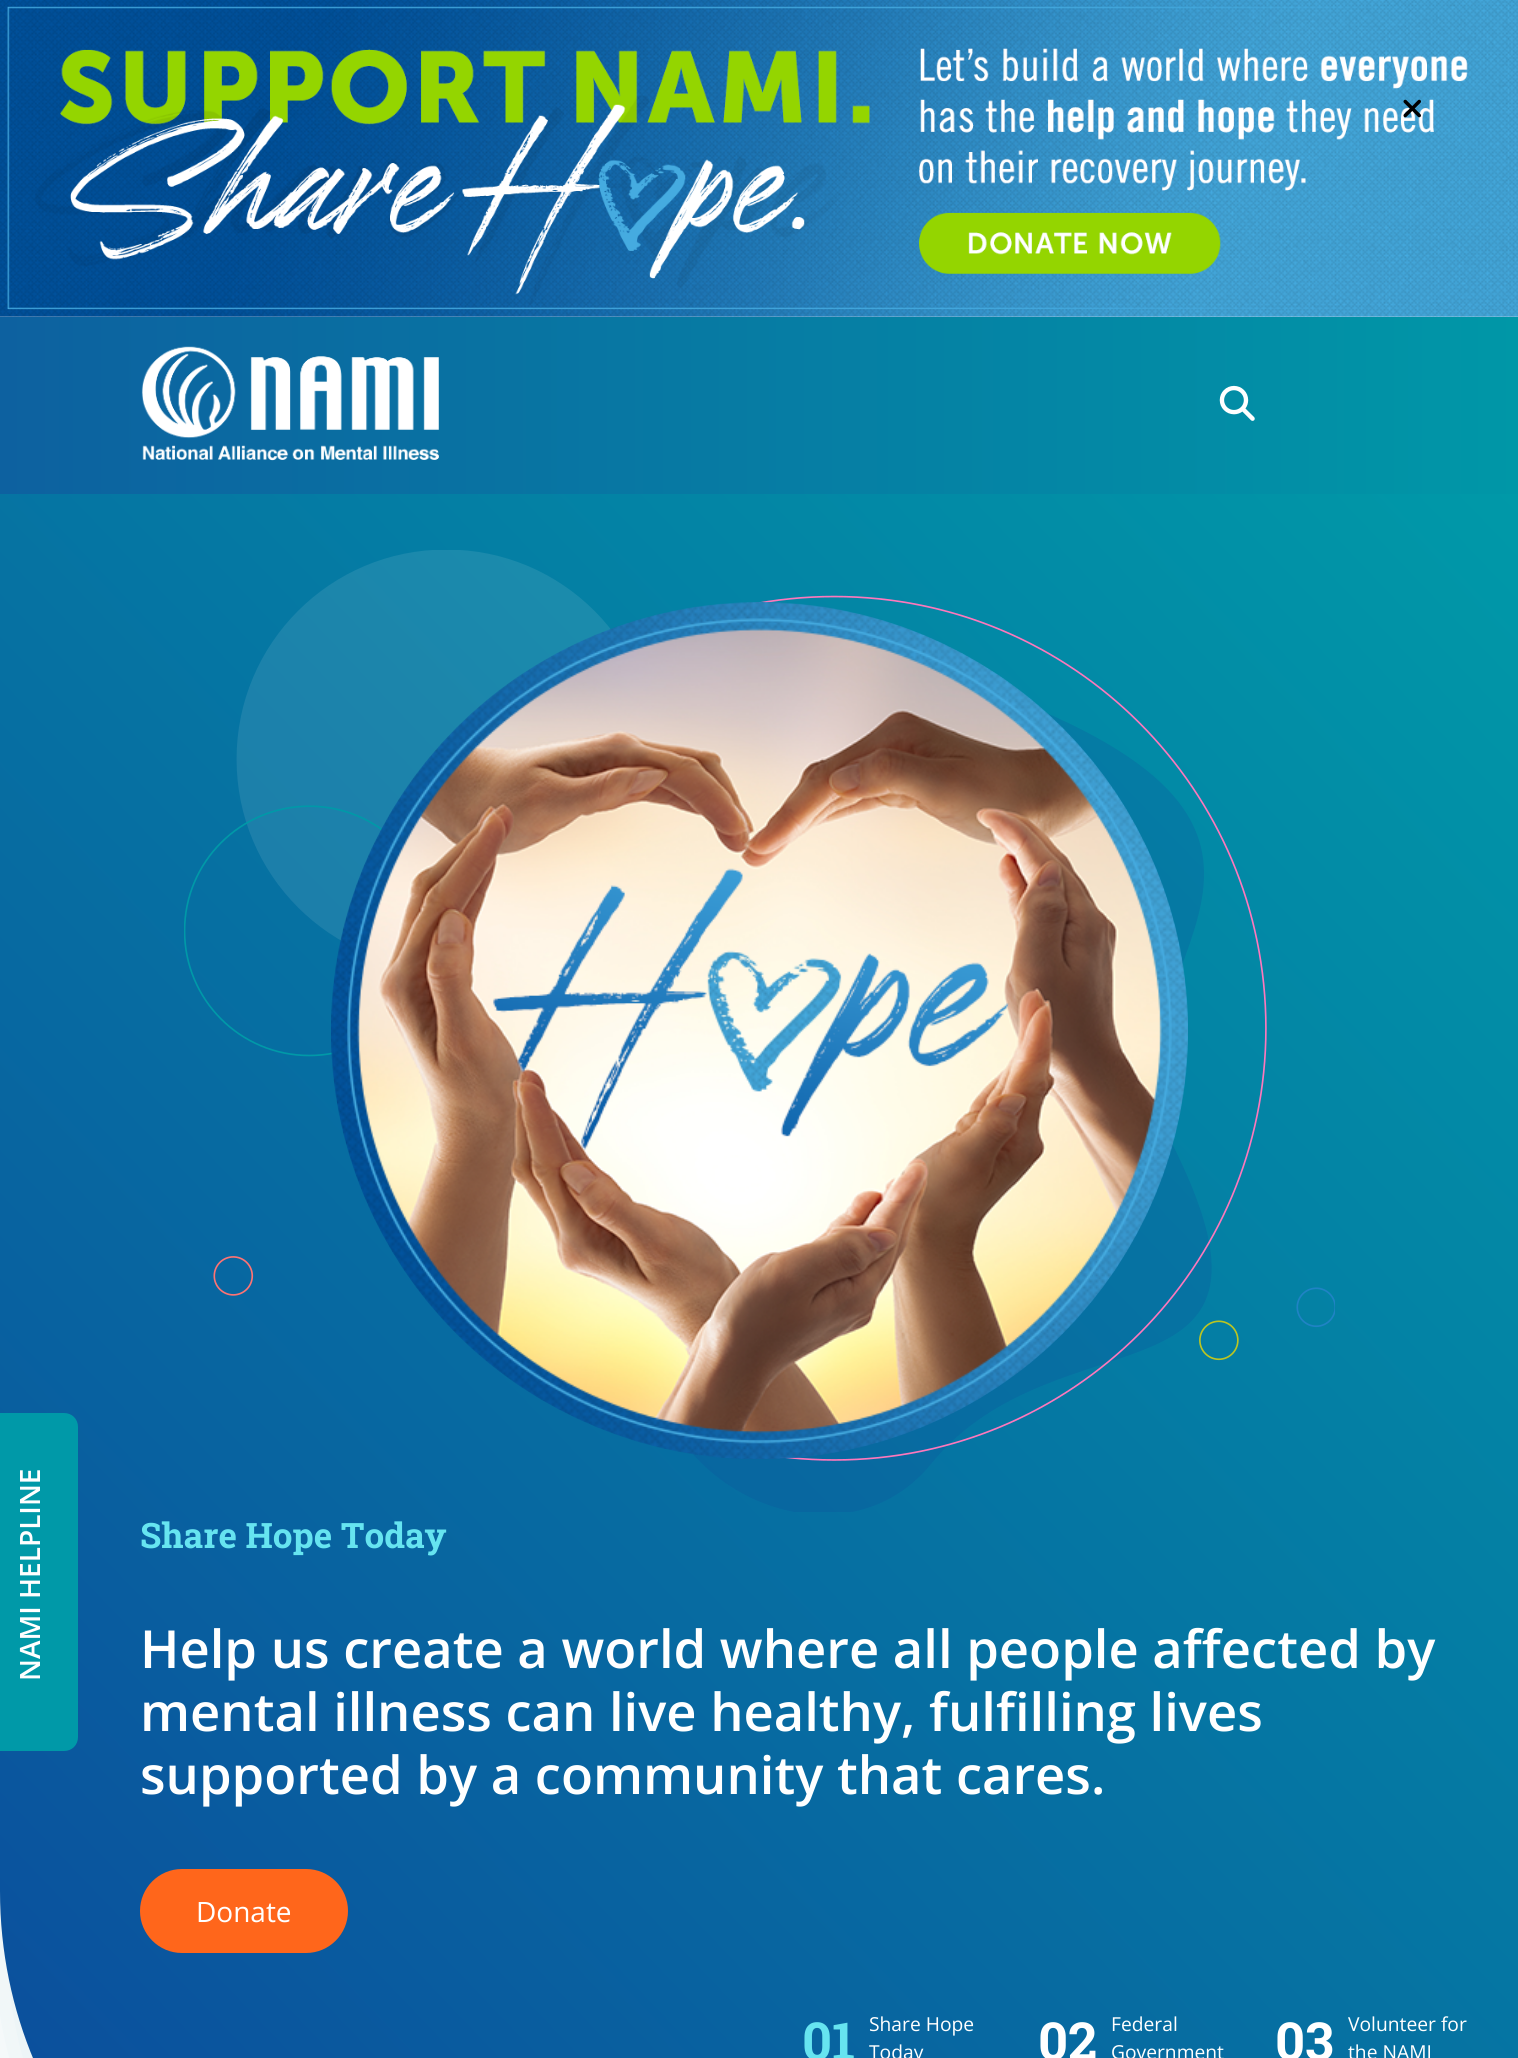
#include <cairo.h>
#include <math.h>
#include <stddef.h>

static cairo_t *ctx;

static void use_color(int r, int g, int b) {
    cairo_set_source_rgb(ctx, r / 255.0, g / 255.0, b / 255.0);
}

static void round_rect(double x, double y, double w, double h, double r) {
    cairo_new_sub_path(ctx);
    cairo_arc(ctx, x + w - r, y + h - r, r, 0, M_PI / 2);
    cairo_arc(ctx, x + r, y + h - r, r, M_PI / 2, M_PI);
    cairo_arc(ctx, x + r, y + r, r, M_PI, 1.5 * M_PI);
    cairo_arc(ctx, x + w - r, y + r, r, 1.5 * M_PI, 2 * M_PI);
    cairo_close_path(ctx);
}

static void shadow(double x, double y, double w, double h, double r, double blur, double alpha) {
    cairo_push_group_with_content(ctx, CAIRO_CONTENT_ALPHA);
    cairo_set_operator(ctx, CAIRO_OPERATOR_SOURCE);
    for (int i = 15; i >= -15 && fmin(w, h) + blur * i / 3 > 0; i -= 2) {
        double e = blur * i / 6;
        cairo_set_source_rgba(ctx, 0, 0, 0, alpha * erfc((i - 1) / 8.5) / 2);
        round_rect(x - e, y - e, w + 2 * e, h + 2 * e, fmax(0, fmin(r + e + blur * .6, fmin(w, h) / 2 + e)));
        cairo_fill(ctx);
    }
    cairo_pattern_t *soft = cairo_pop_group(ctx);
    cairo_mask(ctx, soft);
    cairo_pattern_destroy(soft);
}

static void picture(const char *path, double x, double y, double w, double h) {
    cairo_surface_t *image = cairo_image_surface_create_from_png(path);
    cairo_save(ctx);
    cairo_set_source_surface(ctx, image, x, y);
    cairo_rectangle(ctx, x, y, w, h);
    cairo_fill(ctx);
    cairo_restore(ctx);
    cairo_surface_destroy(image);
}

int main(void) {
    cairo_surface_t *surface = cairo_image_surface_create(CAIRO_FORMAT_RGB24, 1518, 2058);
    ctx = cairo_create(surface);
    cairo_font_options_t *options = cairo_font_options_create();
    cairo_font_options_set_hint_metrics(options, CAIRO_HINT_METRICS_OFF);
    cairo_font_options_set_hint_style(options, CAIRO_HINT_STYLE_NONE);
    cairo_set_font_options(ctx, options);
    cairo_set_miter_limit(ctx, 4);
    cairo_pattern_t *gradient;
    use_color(255, 255, 255);
    cairo_paint(ctx);
    picture("img1.png", 0, 0, 1518, 317);
    picture("img2.png", 1403, 99, 18, 19);
    use_color(183, 215, 222);
    shadow(0, 564, 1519, 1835, 438, 39.5, 0.4);
    gradient = cairo_pattern_create_linear(0, 405, 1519, 405);
    cairo_pattern_add_color_stop_rgba(gradient, 0, 0.051, 0.38, 0.627, 1);
    cairo_pattern_add_color_stop_rgba(gradient, 1, 0, 0.592, 0.655, 1);
    cairo_set_source(ctx, gradient);
    cairo_pattern_destroy(gradient);
    cairo_rectangle(ctx, 0, 317, 1518, 177);
    cairo_fill(ctx);
    picture("img3.png", 141, 346, 298, 115);
    picture("img4.png", 1219, 385, 36, 36);
    gradient = cairo_pattern_create_linear(-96, 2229, 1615, 594);
    cairo_pattern_add_color_stop_rgba(gradient, 0, 0.047, 0.286, 0.612, 1);
    cairo_pattern_add_color_stop_rgba(gradient, 1, 0, 0.6, 0.659, 1);
    cairo_set_source(ctx, gradient);
    cairo_pattern_destroy(gradient);
    cairo_new_path(ctx);
    cairo_move_to(ctx, 0, 494);
    cairo_line_to(ctx, 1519, 494);
    cairo_line_to(ctx, 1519, 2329);
    cairo_line_to(ctx, 438, 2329);
    cairo_curve_to(ctx, 196, 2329, 0, 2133, 0, 1891);
    cairo_close_path(ctx);
    cairo_fill(ctx);
    use_color(0, 153, 168);
    cairo_new_path(ctx);
    cairo_move_to(ctx, -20, 1751);
    cairo_line_to(ctx, -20, 1413);
    cairo_line_to(ctx, 64, 1413);
    cairo_curve_to(ctx, 72, 1413, 78, 1419, 78, 1427);
    cairo_line_to(ctx, 78, 1737);
    cairo_curve_to(ctx, 78, 1745, 72, 1751, 64, 1751);
    cairo_close_path(ctx);
    cairo_fill(ctx);
    cairo_select_font_face(ctx, "Open Sans SemiBold", CAIRO_FONT_SLANT_NORMAL, CAIRO_FONT_WEIGHT_NORMAL);
    cairo_set_font_size(ctx, 28);
    use_color(255, 255, 255);
    cairo_save(ctx);
    cairo_translate(ctx, 40, 1681);
    cairo_rotate(ctx, -90 * M_PI / 180);
    cairo_move_to(ctx, 0, 0);
    cairo_show_text(ctx, "NAMI HELPLINE");
    cairo_restore(ctx);
    picture("img5.png", 184, 550, 1151, 962);
    picture("img6.png", 331, 602, 857, 857);
    cairo_select_font_face(ctx, "Roboto Slab", CAIRO_FONT_SLANT_NORMAL, CAIRO_FONT_WEIGHT_BOLD);
    cairo_set_font_size(ctx, 35);
    use_color(102, 228, 240);
    cairo_move_to(ctx, 140, 1548);
    cairo_show_text(ctx, "Share Hope Today");
    cairo_select_font_face(ctx, "Open Sans SemiBold", CAIRO_FONT_SLANT_NORMAL, CAIRO_FONT_WEIGHT_NORMAL);
    cairo_set_font_size(ctx, 52.5);
    use_color(255, 255, 255);
    cairo_move_to(ctx, 140, 1668);
    cairo_show_text(ctx, "Help us create a world where all people affected by");
    cairo_move_to(ctx, 140, 1731);
    cairo_show_text(ctx, "mental illness can live healthy, fulfilling lives");
    cairo_move_to(ctx, 140, 1794);
    cairo_show_text(ctx, "supported by a community that cares.");
    use_color(255, 102, 27);
    round_rect(140, 1869, 208, 84, 42);
    cairo_fill(ctx);
    cairo_select_font_face(ctx, "Open Sans", CAIRO_FONT_SLANT_NORMAL, CAIRO_FONT_WEIGHT_NORMAL);
    cairo_set_font_size(ctx, 28);
    use_color(255, 255, 255);
    cairo_move_to(ctx, 196, 1922);
    cairo_show_text(ctx, "Donate");
    cairo_select_font_face(ctx, "Roboto Slab", CAIRO_FONT_SLANT_NORMAL, CAIRO_FONT_WEIGHT_BOLD);
    cairo_set_font_size(ctx, 52.5);
    use_color(102, 228, 240);
    cairo_move_to(ctx, 802, 2060);
    cairo_show_text(ctx, "01");
    cairo_select_font_face(ctx, "Open Sans", CAIRO_FONT_SLANT_NORMAL, CAIRO_FONT_WEIGHT_NORMAL);
    cairo_set_font_size(ctx, 19.25);
    use_color(255, 255, 255);
    cairo_move_to(ctx, 869, 2031);
    cairo_show_text(ctx, "Share Hope");
    cairo_move_to(ctx, 869, 2059);
    cairo_show_text(ctx, "Today");
    cairo_select_font_face(ctx, "Roboto Slab", CAIRO_FONT_SLANT_NORMAL, CAIRO_FONT_WEIGHT_BOLD);
    cairo_set_font_size(ctx, 52.5);
    cairo_move_to(ctx, 1038, 2060);
    cairo_show_text(ctx, "02");
    cairo_select_font_face(ctx, "Open Sans", CAIRO_FONT_SLANT_NORMAL, CAIRO_FONT_WEIGHT_NORMAL);
    cairo_set_font_size(ctx, 19.25);
    cairo_move_to(ctx, 1111, 2031);
    cairo_show_text(ctx, "Federal");
    cairo_move_to(ctx, 1111, 2059);
    cairo_show_text(ctx, "Government");
    cairo_select_font_face(ctx, "Roboto Slab", CAIRO_FONT_SLANT_NORMAL, CAIRO_FONT_WEIGHT_BOLD);
    cairo_set_font_size(ctx, 52.5);
    cairo_move_to(ctx, 1275, 2060);
    cairo_show_text(ctx, "03");
    cairo_select_font_face(ctx, "Open Sans", CAIRO_FONT_SLANT_NORMAL, CAIRO_FONT_WEIGHT_NORMAL);
    cairo_set_font_size(ctx, 19.25);
    cairo_move_to(ctx, 1348, 2031);
    cairo_show_text(ctx, "Volunteer for");
    cairo_move_to(ctx, 1348, 2059);
    cairo_show_text(ctx, "the NAMI");
    cairo_surface_write_to_png(surface, "result.png");
    cairo_font_options_destroy(options);
    cairo_destroy(ctx);
    cairo_surface_destroy(surface);
    return 0;
}
